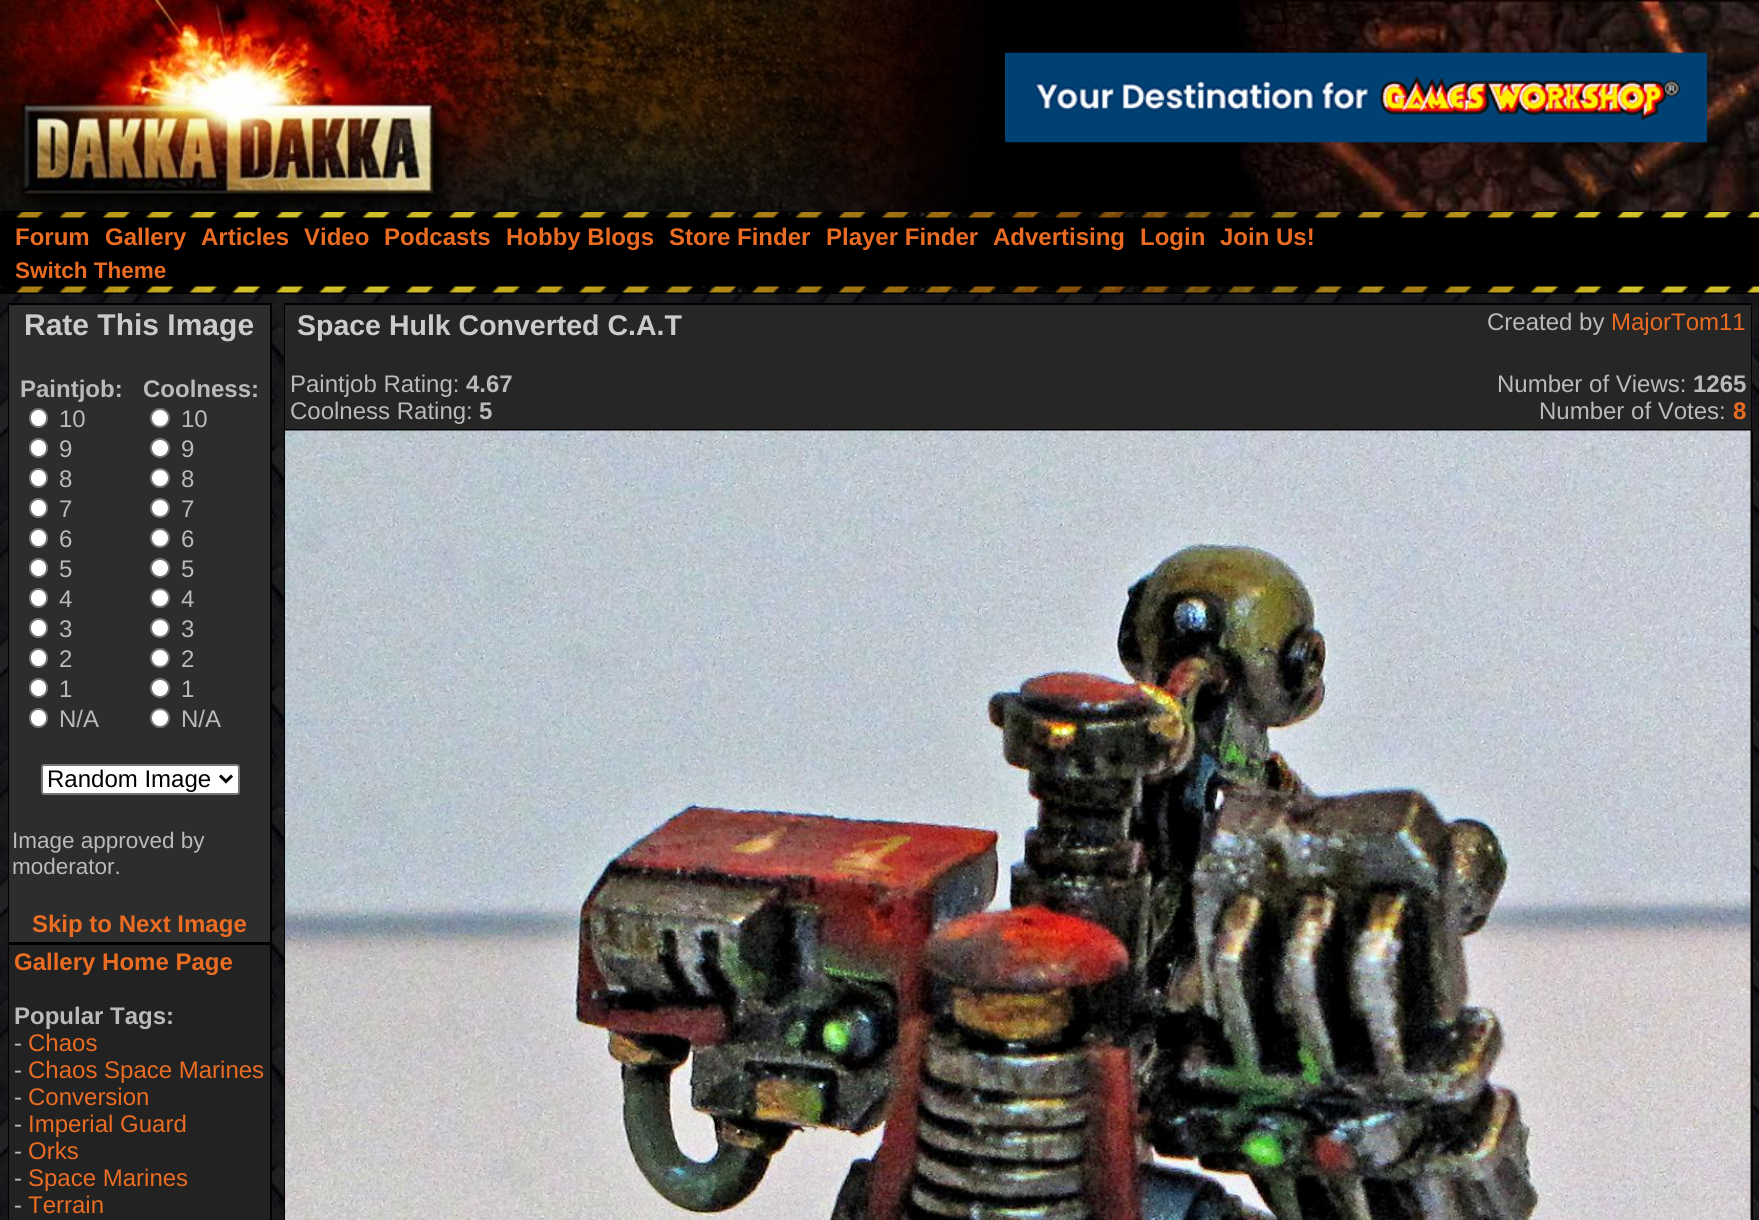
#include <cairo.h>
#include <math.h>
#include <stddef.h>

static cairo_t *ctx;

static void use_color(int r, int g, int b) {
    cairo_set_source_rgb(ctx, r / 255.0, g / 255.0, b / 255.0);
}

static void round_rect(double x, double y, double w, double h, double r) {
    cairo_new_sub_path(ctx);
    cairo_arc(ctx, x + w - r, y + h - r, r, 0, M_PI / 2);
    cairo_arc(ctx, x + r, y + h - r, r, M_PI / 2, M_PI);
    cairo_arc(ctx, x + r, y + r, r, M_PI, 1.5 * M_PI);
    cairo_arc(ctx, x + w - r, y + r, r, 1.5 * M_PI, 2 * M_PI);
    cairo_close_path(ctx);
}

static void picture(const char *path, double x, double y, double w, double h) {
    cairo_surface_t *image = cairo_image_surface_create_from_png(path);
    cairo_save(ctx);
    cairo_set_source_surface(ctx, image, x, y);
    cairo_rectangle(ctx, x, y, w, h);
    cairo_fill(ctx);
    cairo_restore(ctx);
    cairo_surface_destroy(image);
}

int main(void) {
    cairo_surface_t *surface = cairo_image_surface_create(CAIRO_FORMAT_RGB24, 1759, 1220);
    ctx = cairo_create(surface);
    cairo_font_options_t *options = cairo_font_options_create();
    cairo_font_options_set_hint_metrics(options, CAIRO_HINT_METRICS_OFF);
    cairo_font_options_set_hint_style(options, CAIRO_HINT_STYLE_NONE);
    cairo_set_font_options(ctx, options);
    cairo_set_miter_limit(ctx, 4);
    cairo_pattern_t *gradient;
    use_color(255, 255, 255);
    cairo_paint(ctx);
    picture("img1.png", 0, 294, 1759, 926);
    use_color(0, 0, 0);
    cairo_rectangle(ctx, 0, 0, 1759, 212);
    cairo_fill(ctx);
    picture("img2.png", 468, 0, 515, 212);
    picture("img3.png", 0, 0, 468, 211);
    gradient = cairo_pattern_create_linear(960, 106, 1005, 106);
    cairo_pattern_add_color_stop_rgba(gradient, 0, 0, 0, 0, 0);
    cairo_pattern_add_color_stop_rgba(gradient, 1, 0, 0, 0, 1);
    cairo_set_source(ctx, gradient);
    cairo_pattern_destroy(gradient);
    cairo_rectangle(ctx, 977, 12, 4, 5);
    cairo_fill(ctx);
    picture("img4.png", 1237, 0, 522, 212);
    picture("img5.png", 1005, 52, 702, 91);
    use_color(0, 0, 0);
    cairo_rectangle(ctx, 0, 218, 1759, 69);
    cairo_fill(ctx);
    picture("img6.png", 0, 212, 1759, 6);
    cairo_select_font_face(ctx, "Liberation Sans", CAIRO_FONT_SLANT_NORMAL, CAIRO_FONT_WEIGHT_BOLD);
    cairo_set_font_size(ctx, 24);
    use_color(234, 108, 34);
    cairo_move_to(ctx, 15, 245);
    cairo_show_text(ctx, "Forum");
    cairo_move_to(ctx, 105, 245);
    cairo_show_text(ctx, "Gallery");
    cairo_move_to(ctx, 201, 245);
    cairo_show_text(ctx, "Articles");
    cairo_move_to(ctx, 304, 245);
    cairo_show_text(ctx, "Video");
    cairo_move_to(ctx, 384, 245);
    cairo_show_text(ctx, "Podcasts");
    cairo_move_to(ctx, 506, 245);
    cairo_show_text(ctx, "Hobby Blogs");
    cairo_move_to(ctx, 669, 245);
    cairo_show_text(ctx, "Store Finder");
    cairo_move_to(ctx, 826, 245);
    cairo_show_text(ctx, "Player Finder");
    cairo_move_to(ctx, 993, 245);
    cairo_show_text(ctx, "Advertising");
    cairo_move_to(ctx, 1140, 245);
    cairo_show_text(ctx, "Login");
    cairo_move_to(ctx, 1220, 245);
    cairo_show_text(ctx, "Join Us!");
    cairo_set_font_size(ctx, 22.5);
    cairo_move_to(ctx, 15, 278);
    cairo_show_text(ctx, "Switch Theme");
    use_color(0, 0, 0);
    cairo_rectangle(ctx, 0, 293, 1759, 1);
    cairo_fill(ctx);
    picture("img7.png", 0, 286, 1759, 7);
    cairo_rectangle(ctx, 9, 304, 262, 639);
    cairo_stroke(ctx);
    use_color(45, 45, 45);
    cairo_rectangle(ctx, 9, 305, 261, 637);
    cairo_fill(ctx);
    cairo_set_font_size(ctx, 30);
    use_color(203, 203, 203);
    cairo_move_to(ctx, 24, 335);
    cairo_show_text(ctx, "Rate This Image");
    cairo_set_font_size(ctx, 24);
    use_color(186, 186, 186);
    cairo_move_to(ctx, 20, 397);
    cairo_show_text(ctx, "Paintjob:");
    use_color(255, 255, 255);
    round_rect(30, 409, 17, 18, 8.5);
    cairo_fill_preserve(ctx);
    use_color(118, 118, 118);
    cairo_stroke(ctx);
    cairo_select_font_face(ctx, "Liberation Sans", CAIRO_FONT_SLANT_NORMAL, CAIRO_FONT_WEIGHT_NORMAL);
    use_color(186, 186, 186);
    cairo_move_to(ctx, 59, 427);
    cairo_show_text(ctx, "10");
    use_color(255, 255, 255);
    round_rect(30, 439, 17, 18, 8.5);
    cairo_fill_preserve(ctx);
    use_color(118, 118, 118);
    cairo_stroke(ctx);
    use_color(186, 186, 186);
    cairo_move_to(ctx, 59, 457);
    cairo_show_text(ctx, "9");
    use_color(255, 255, 255);
    round_rect(30, 469, 17, 18, 8.5);
    cairo_fill_preserve(ctx);
    use_color(118, 118, 118);
    cairo_stroke(ctx);
    use_color(186, 186, 186);
    cairo_move_to(ctx, 59, 487);
    cairo_show_text(ctx, "8");
    use_color(255, 255, 255);
    round_rect(30, 499, 17, 18, 8.5);
    cairo_fill_preserve(ctx);
    use_color(118, 118, 118);
    cairo_stroke(ctx);
    use_color(186, 186, 186);
    cairo_move_to(ctx, 59, 517);
    cairo_show_text(ctx, "7");
    use_color(255, 255, 255);
    round_rect(30, 529, 17, 18, 8.5);
    cairo_fill_preserve(ctx);
    use_color(118, 118, 118);
    cairo_stroke(ctx);
    use_color(186, 186, 186);
    cairo_move_to(ctx, 59, 547);
    cairo_show_text(ctx, "6");
    use_color(255, 255, 255);
    round_rect(30, 559, 17, 18, 8.5);
    cairo_fill_preserve(ctx);
    use_color(118, 118, 118);
    cairo_stroke(ctx);
    use_color(186, 186, 186);
    cairo_move_to(ctx, 59, 577);
    cairo_show_text(ctx, "5");
    use_color(255, 255, 255);
    round_rect(30, 589, 17, 18, 8.5);
    cairo_fill_preserve(ctx);
    use_color(118, 118, 118);
    cairo_stroke(ctx);
    use_color(186, 186, 186);
    cairo_move_to(ctx, 59, 607);
    cairo_show_text(ctx, "4");
    use_color(255, 255, 255);
    round_rect(30, 619, 17, 18, 8.5);
    cairo_fill_preserve(ctx);
    use_color(118, 118, 118);
    cairo_stroke(ctx);
    use_color(186, 186, 186);
    cairo_move_to(ctx, 59, 637);
    cairo_show_text(ctx, "3");
    use_color(255, 255, 255);
    round_rect(30, 649, 17, 18, 8.5);
    cairo_fill_preserve(ctx);
    use_color(118, 118, 118);
    cairo_stroke(ctx);
    use_color(186, 186, 186);
    cairo_move_to(ctx, 59, 667);
    cairo_show_text(ctx, "2");
    use_color(255, 255, 255);
    round_rect(30, 679, 17, 18, 8.5);
    cairo_fill_preserve(ctx);
    use_color(118, 118, 118);
    cairo_stroke(ctx);
    use_color(186, 186, 186);
    cairo_move_to(ctx, 59, 697);
    cairo_show_text(ctx, "1");
    use_color(255, 255, 255);
    round_rect(30, 709, 17, 18, 8.5);
    cairo_fill_preserve(ctx);
    use_color(118, 118, 118);
    cairo_stroke(ctx);
    use_color(186, 186, 186);
    cairo_move_to(ctx, 59, 727);
    cairo_show_text(ctx, "N/A");
    cairo_select_font_face(ctx, "Liberation Sans", CAIRO_FONT_SLANT_NORMAL, CAIRO_FONT_WEIGHT_BOLD);
    cairo_move_to(ctx, 143, 397);
    cairo_show_text(ctx, "Coolness:");
    use_color(255, 255, 255);
    cairo_new_path(ctx);
    cairo_arc(ctx, 160, 418, 9, 0, 2 * M_PI);
    cairo_fill_preserve(ctx);
    use_color(118, 118, 118);
    cairo_stroke(ctx);
    cairo_select_font_face(ctx, "Liberation Sans", CAIRO_FONT_SLANT_NORMAL, CAIRO_FONT_WEIGHT_NORMAL);
    use_color(186, 186, 186);
    cairo_move_to(ctx, 181, 427);
    cairo_show_text(ctx, "10");
    use_color(255, 255, 255);
    cairo_new_path(ctx);
    cairo_arc(ctx, 160, 448, 9, 0, 2 * M_PI);
    cairo_fill_preserve(ctx);
    use_color(118, 118, 118);
    cairo_stroke(ctx);
    use_color(186, 186, 186);
    cairo_move_to(ctx, 181, 457);
    cairo_show_text(ctx, "9");
    use_color(255, 255, 255);
    cairo_new_path(ctx);
    cairo_arc(ctx, 160, 478, 9, 0, 2 * M_PI);
    cairo_fill_preserve(ctx);
    use_color(118, 118, 118);
    cairo_stroke(ctx);
    use_color(186, 186, 186);
    cairo_move_to(ctx, 181, 487);
    cairo_show_text(ctx, "8");
    use_color(255, 255, 255);
    cairo_new_path(ctx);
    cairo_arc(ctx, 160, 508, 9, 0, 2 * M_PI);
    cairo_fill_preserve(ctx);
    use_color(118, 118, 118);
    cairo_stroke(ctx);
    use_color(186, 186, 186);
    cairo_move_to(ctx, 181, 517);
    cairo_show_text(ctx, "7");
    use_color(255, 255, 255);
    cairo_new_path(ctx);
    cairo_arc(ctx, 160, 538, 9, 0, 2 * M_PI);
    cairo_fill_preserve(ctx);
    use_color(118, 118, 118);
    cairo_stroke(ctx);
    use_color(186, 186, 186);
    cairo_move_to(ctx, 181, 547);
    cairo_show_text(ctx, "6");
    use_color(255, 255, 255);
    cairo_new_path(ctx);
    cairo_arc(ctx, 160, 568, 9, 0, 2 * M_PI);
    cairo_fill_preserve(ctx);
    use_color(118, 118, 118);
    cairo_stroke(ctx);
    use_color(186, 186, 186);
    cairo_move_to(ctx, 181, 577);
    cairo_show_text(ctx, "5");
    use_color(255, 255, 255);
    cairo_new_path(ctx);
    cairo_arc(ctx, 160, 598, 9, 0, 2 * M_PI);
    cairo_fill_preserve(ctx);
    use_color(118, 118, 118);
    cairo_stroke(ctx);
    use_color(186, 186, 186);
    cairo_move_to(ctx, 181, 607);
    cairo_show_text(ctx, "4");
    use_color(255, 255, 255);
    cairo_new_path(ctx);
    cairo_arc(ctx, 160, 628, 9, 0, 2 * M_PI);
    cairo_fill_preserve(ctx);
    use_color(118, 118, 118);
    cairo_stroke(ctx);
    use_color(186, 186, 186);
    cairo_move_to(ctx, 181, 637);
    cairo_show_text(ctx, "3");
    use_color(255, 255, 255);
    cairo_new_path(ctx);
    cairo_arc(ctx, 160, 658, 9, 0, 2 * M_PI);
    cairo_fill_preserve(ctx);
    use_color(118, 118, 118);
    cairo_stroke(ctx);
    use_color(186, 186, 186);
    cairo_move_to(ctx, 181, 667);
    cairo_show_text(ctx, "2");
    use_color(255, 255, 255);
    cairo_new_path(ctx);
    cairo_arc(ctx, 160, 688, 9, 0, 2 * M_PI);
    cairo_fill_preserve(ctx);
    use_color(118, 118, 118);
    cairo_stroke(ctx);
    use_color(186, 186, 186);
    cairo_move_to(ctx, 181, 697);
    cairo_show_text(ctx, "1");
    use_color(255, 255, 255);
    cairo_new_path(ctx);
    cairo_arc(ctx, 160, 718, 9, 0, 2 * M_PI);
    cairo_fill_preserve(ctx);
    use_color(118, 118, 118);
    cairo_stroke(ctx);
    use_color(186, 186, 186);
    cairo_move_to(ctx, 181, 727);
    cairo_show_text(ctx, "N/A");
    use_color(255, 255, 255);
    round_rect(42, 765, 197, 29, 2);
    cairo_fill_preserve(ctx);
    use_color(118, 118, 118);
    cairo_stroke(ctx);
    cairo_new_path(ctx);
    cairo_move_to(ctx, 220, 775.5);
    cairo_line_to(ctx, 226, 781.5);
    cairo_line_to(ctx, 232, 775.5);
    use_color(0, 0, 0);
    cairo_set_line_width(ctx, 3);
    cairo_stroke(ctx);
    cairo_move_to(ctx, 47, 787);
    cairo_show_text(ctx, "Random Image");
    cairo_set_font_size(ctx, 22.5);
    use_color(186, 186, 186);
    cairo_move_to(ctx, 12, 848);
    cairo_show_text(ctx, "Image approved by");
    cairo_move_to(ctx, 12, 874);
    cairo_show_text(ctx, "moderator.");
    cairo_select_font_face(ctx, "Liberation Sans", CAIRO_FONT_SLANT_NORMAL, CAIRO_FONT_WEIGHT_BOLD);
    cairo_set_font_size(ctx, 24);
    use_color(234, 108, 34);
    cairo_move_to(ctx, 32, 932);
    cairo_show_text(ctx, "Skip to Next Image");
    cairo_rectangle(ctx, 9, 945, 262, 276);
    use_color(0, 0, 0);
    cairo_set_line_width(ctx, 2);
    cairo_stroke(ctx);
    use_color(34, 34, 34);
    cairo_rectangle(ctx, 9, 945, 261, 275);
    cairo_fill(ctx);
    use_color(234, 108, 34);
    cairo_move_to(ctx, 14, 970);
    cairo_show_text(ctx, "Gallery Home Page");
    use_color(186, 186, 186);
    cairo_move_to(ctx, 14, 1024);
    cairo_show_text(ctx, "Popular Tags:");
    cairo_select_font_face(ctx, "Liberation Sans", CAIRO_FONT_SLANT_NORMAL, CAIRO_FONT_WEIGHT_NORMAL);
    cairo_move_to(ctx, 14, 1051);
    cairo_show_text(ctx, "-");
    use_color(234, 108, 34);
    cairo_move_to(ctx, 28, 1051);
    cairo_show_text(ctx, "Chaos");
    use_color(186, 186, 186);
    cairo_move_to(ctx, 14, 1078);
    cairo_show_text(ctx, "-");
    use_color(234, 108, 34);
    cairo_move_to(ctx, 28, 1078);
    cairo_show_text(ctx, "Chaos Space Marines");
    use_color(186, 186, 186);
    cairo_move_to(ctx, 14, 1105);
    cairo_show_text(ctx, "-");
    use_color(234, 108, 34);
    cairo_move_to(ctx, 28, 1105);
    cairo_show_text(ctx, "Conversion");
    use_color(186, 186, 186);
    cairo_move_to(ctx, 14, 1132);
    cairo_show_text(ctx, "-");
    use_color(234, 108, 34);
    cairo_move_to(ctx, 28, 1132);
    cairo_show_text(ctx, "Imperial Guard");
    use_color(186, 186, 186);
    cairo_move_to(ctx, 14, 1159);
    cairo_show_text(ctx, "-");
    use_color(234, 108, 34);
    cairo_move_to(ctx, 28, 1159);
    cairo_show_text(ctx, "Orks");
    use_color(186, 186, 186);
    cairo_move_to(ctx, 14, 1186);
    cairo_show_text(ctx, "-");
    use_color(234, 108, 34);
    cairo_move_to(ctx, 28, 1186);
    cairo_show_text(ctx, "Space Marines");
    use_color(186, 186, 186);
    cairo_move_to(ctx, 14, 1213);
    cairo_show_text(ctx, "-");
    use_color(234, 108, 34);
    cairo_move_to(ctx, 28, 1213);
    cairo_show_text(ctx, "Terrain");
    cairo_rectangle(ctx, 285, 304, 1466, 126);
    use_color(0, 0, 0);
    cairo_stroke(ctx);
    use_color(38, 38, 38);
    cairo_rectangle(ctx, 285, 305, 1466, 124);
    cairo_fill(ctx);
    cairo_select_font_face(ctx, "Liberation Sans", CAIRO_FONT_SLANT_NORMAL, CAIRO_FONT_WEIGHT_BOLD);
    cairo_set_font_size(ctx, 28.5);
    use_color(203, 203, 203);
    cairo_move_to(ctx, 297, 335);
    cairo_show_text(ctx, "Space Hulk Converted C.A.T");
    cairo_select_font_face(ctx, "Liberation Sans", CAIRO_FONT_SLANT_NORMAL, CAIRO_FONT_WEIGHT_NORMAL);
    cairo_set_font_size(ctx, 24);
    use_color(186, 186, 186);
    cairo_move_to(ctx, 1487, 330);
    cairo_show_text(ctx, "Created by");
    use_color(234, 108, 34);
    cairo_move_to(ctx, 1611, 330);
    cairo_show_text(ctx, "MajorTom11");
    use_color(186, 186, 186);
    cairo_move_to(ctx, 290, 392);
    cairo_show_text(ctx, "Paintjob Rating:");
    cairo_select_font_face(ctx, "Liberation Sans", CAIRO_FONT_SLANT_NORMAL, CAIRO_FONT_WEIGHT_BOLD);
    cairo_move_to(ctx, 466, 392);
    cairo_show_text(ctx, "4.67");
    cairo_select_font_face(ctx, "Liberation Sans", CAIRO_FONT_SLANT_NORMAL, CAIRO_FONT_WEIGHT_NORMAL);
    cairo_move_to(ctx, 1497, 392);
    cairo_show_text(ctx, "Number of Views:");
    cairo_select_font_face(ctx, "Liberation Sans", CAIRO_FONT_SLANT_NORMAL, CAIRO_FONT_WEIGHT_BOLD);
    cairo_move_to(ctx, 1693, 392);
    cairo_show_text(ctx, "1265");
    cairo_select_font_face(ctx, "Liberation Sans", CAIRO_FONT_SLANT_NORMAL, CAIRO_FONT_WEIGHT_NORMAL);
    cairo_move_to(ctx, 290, 419);
    cairo_show_text(ctx, "Coolness Rating:");
    cairo_select_font_face(ctx, "Liberation Sans", CAIRO_FONT_SLANT_NORMAL, CAIRO_FONT_WEIGHT_BOLD);
    cairo_move_to(ctx, 479, 419);
    cairo_show_text(ctx, "5");
    cairo_select_font_face(ctx, "Liberation Sans", CAIRO_FONT_SLANT_NORMAL, CAIRO_FONT_WEIGHT_NORMAL);
    cairo_move_to(ctx, 1539, 419);
    cairo_show_text(ctx, "Number of Votes:");
    cairo_select_font_face(ctx, "Liberation Sans", CAIRO_FONT_SLANT_NORMAL, CAIRO_FONT_WEIGHT_BOLD);
    use_color(234, 108, 34);
    cairo_move_to(ctx, 1733, 419);
    cairo_show_text(ctx, "8");
    use_color(0, 0, 0);
    cairo_rectangle(ctx, 1751, 431, 2, 789);
    cairo_fill(ctx);
    cairo_rectangle(ctx, 284, 431, 1, 789);
    cairo_fill(ctx);
    use_color(34, 34, 34);
    cairo_rectangle(ctx, 1750, 431, 1, 789);
    cairo_fill(ctx);
    picture("img8.png", 285, 430, 1466, 790);
    cairo_surface_write_to_png(surface, "result.png");
    cairo_font_options_destroy(options);
    cairo_destroy(ctx);
    cairo_surface_destroy(surface);
    return 0;
}
